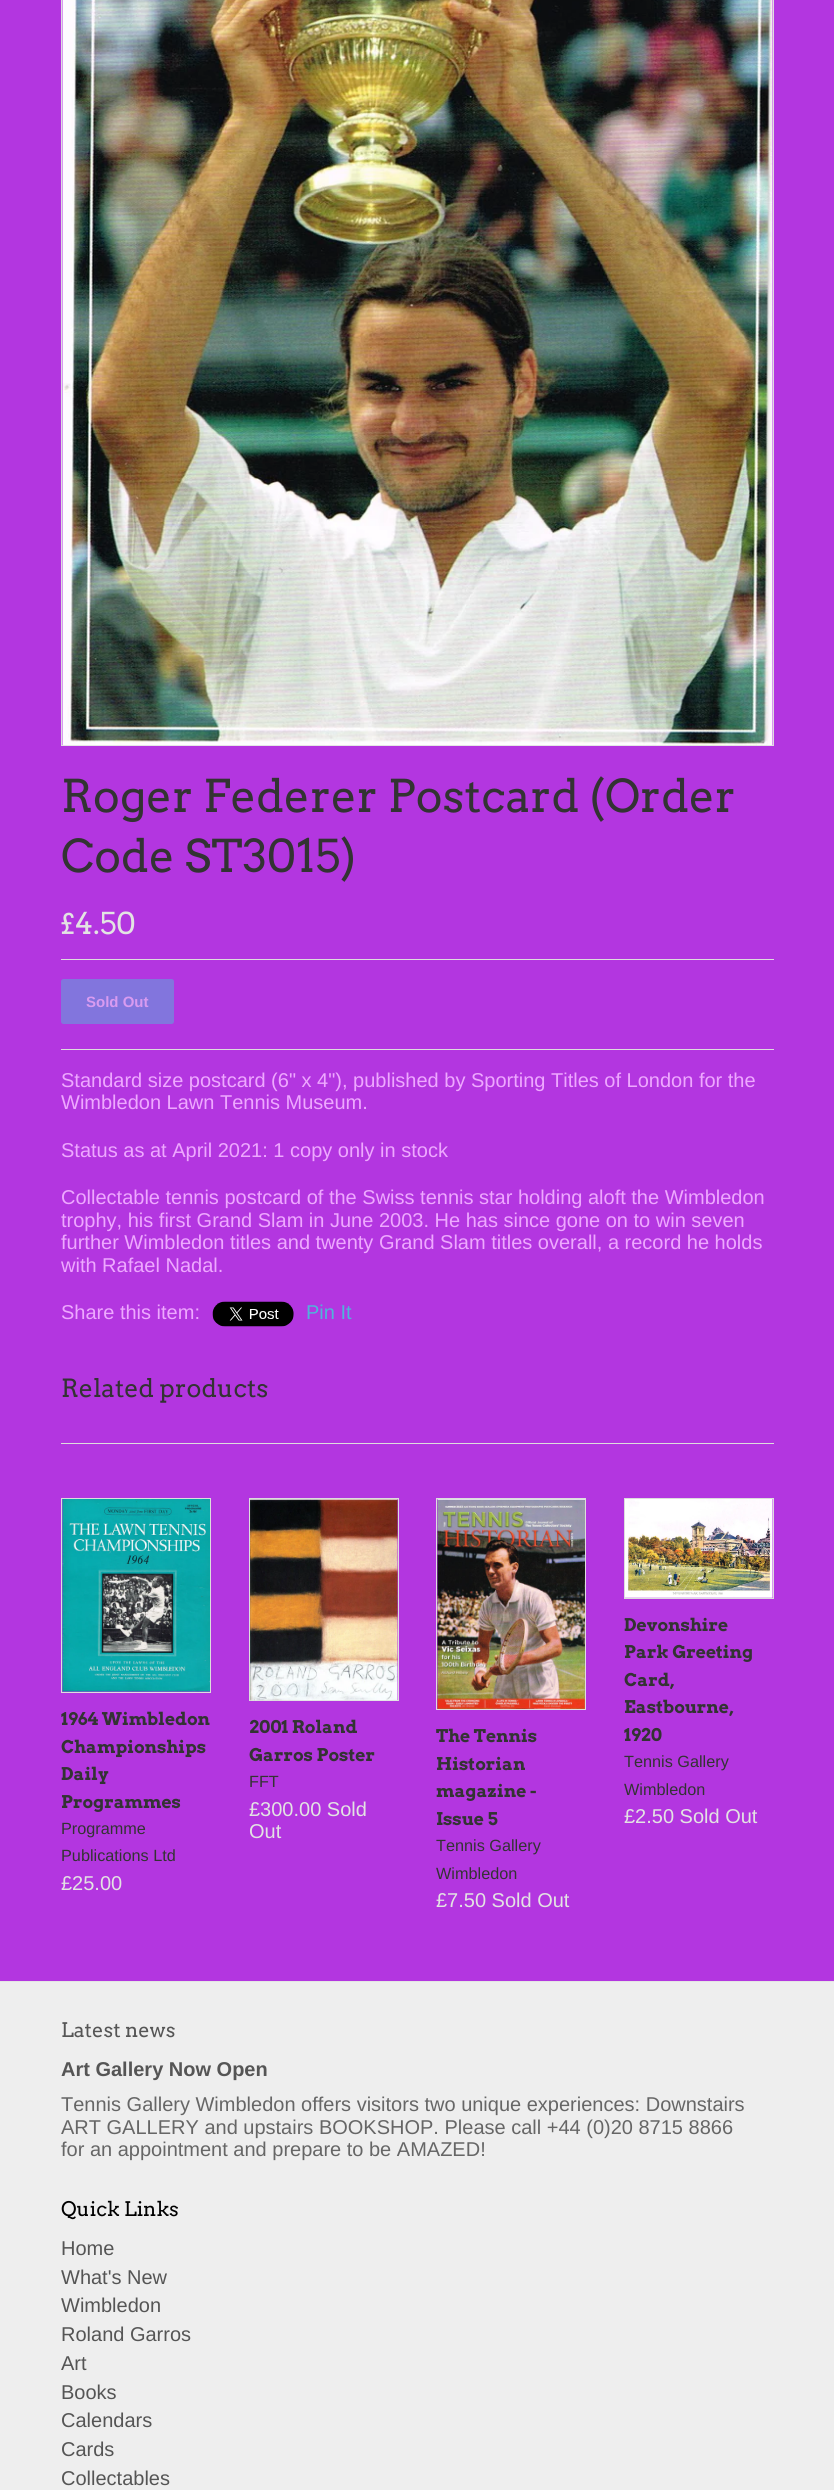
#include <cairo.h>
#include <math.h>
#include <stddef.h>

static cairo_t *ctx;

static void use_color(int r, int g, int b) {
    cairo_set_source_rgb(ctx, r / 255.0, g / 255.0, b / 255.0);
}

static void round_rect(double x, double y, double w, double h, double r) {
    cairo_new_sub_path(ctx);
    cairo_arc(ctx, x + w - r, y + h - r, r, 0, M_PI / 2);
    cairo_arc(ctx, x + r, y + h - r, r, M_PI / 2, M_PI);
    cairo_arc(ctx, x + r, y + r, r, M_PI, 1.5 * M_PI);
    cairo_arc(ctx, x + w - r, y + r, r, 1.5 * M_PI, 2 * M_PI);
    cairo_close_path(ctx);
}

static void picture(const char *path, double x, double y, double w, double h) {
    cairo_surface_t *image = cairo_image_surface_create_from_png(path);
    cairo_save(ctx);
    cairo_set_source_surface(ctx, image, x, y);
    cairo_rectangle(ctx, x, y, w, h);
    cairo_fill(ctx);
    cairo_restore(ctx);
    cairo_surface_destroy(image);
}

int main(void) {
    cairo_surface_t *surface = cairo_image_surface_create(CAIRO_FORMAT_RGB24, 834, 2490);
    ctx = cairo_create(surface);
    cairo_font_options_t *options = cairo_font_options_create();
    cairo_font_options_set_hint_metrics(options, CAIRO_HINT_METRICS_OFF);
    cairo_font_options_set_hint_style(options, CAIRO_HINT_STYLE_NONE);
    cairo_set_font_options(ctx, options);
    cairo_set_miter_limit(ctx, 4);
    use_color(179, 54, 224);
    cairo_paint(ctx);
    cairo_rectangle(ctx, 61.5, -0.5, 712, 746);
    use_color(221, 221, 221);
    cairo_set_line_width(ctx, 1);
    cairo_stroke(ctx);
    picture("img1.png", 62, 0, 711, 746);
    cairo_select_font_face(ctx, "Arvo", CAIRO_FONT_SLANT_NORMAL, CAIRO_FONT_WEIGHT_NORMAL);
    cairo_set_font_size(ctx, 45);
    use_color(51, 51, 51);
    cairo_move_to(ctx, 61, 812);
    cairo_show_text(ctx, "Roger Federer Postcard (Order");
    cairo_move_to(ctx, 61, 872);
    cairo_show_text(ctx, "Code ST3015)");
    cairo_set_font_size(ctx, 30);
    use_color(227, 227, 227);
    cairo_move_to(ctx, 61, 934);
    cairo_show_text(ctx, "£4.50");
    use_color(221, 221, 221);
    cairo_rectangle(ctx, 61, 959, 713, 1);
    cairo_fill(ctx);
    cairo_rectangle(ctx, 61, 1049, 713, 1);
    cairo_fill(ctx);
    use_color(130, 117, 221);
    round_rect(61, 979, 113, 45, 2.5);
    cairo_fill(ctx);
    cairo_select_font_face(ctx, "Liberation Sans", CAIRO_FONT_SLANT_NORMAL, CAIRO_FONT_WEIGHT_BOLD);
    cairo_set_font_size(ctx, 15);
    use_color(217, 155, 240);
    cairo_move_to(ctx, 86, 1007);
    cairo_show_text(ctx, "Sold Out");
    cairo_select_font_face(ctx, "Liberation Sans", CAIRO_FONT_SLANT_NORMAL, CAIRO_FONT_WEIGHT_NORMAL);
    cairo_set_font_size(ctx, 20);
    use_color(238, 168, 255);
    cairo_move_to(ctx, 61, 1087);
    cairo_show_text(ctx, "Standard size postcard (6\" x 4\"), published by Sporting Titles of London for the");
    cairo_move_to(ctx, 61, 1109);
    cairo_show_text(ctx, "Wimbledon Lawn Tennis Museum.");
    cairo_move_to(ctx, 61, 1157);
    cairo_show_text(ctx, "Status as at April 2021: 1 copy only in stock");
    cairo_move_to(ctx, 61, 1204);
    cairo_show_text(ctx, "Collectable tennis postcard of the Swiss tennis star holding aloft the Wimbledon");
    cairo_move_to(ctx, 61, 1227);
    cairo_show_text(ctx, "trophy, his first Grand Slam in June 2003. He has since gone on to win seven");
    cairo_move_to(ctx, 61, 1249);
    cairo_show_text(ctx, "further Wimbledon titles and twenty Grand Slam titles overall, a record he holds");
    cairo_move_to(ctx, 61, 1272);
    cairo_show_text(ctx, "with Rafael Nadal.");
    cairo_move_to(ctx, 61, 1319);
    cairo_show_text(ctx, "Share this item:");
    picture("img2.png", 212, 1301, 82, 26);
    use_color(80, 179, 218);
    cairo_move_to(ctx, 306, 1319);
    cairo_show_text(ctx, "Pin It");
    use_color(221, 221, 221);
    cairo_rectangle(ctx, 61, 1443, 713, 1);
    cairo_fill(ctx);
    cairo_select_font_face(ctx, "Arvo", CAIRO_FONT_SLANT_NORMAL, CAIRO_FONT_WEIGHT_NORMAL);
    cairo_set_font_size(ctx, 25);
    use_color(51, 51, 51);
    cairo_move_to(ctx, 61, 1397);
    cairo_show_text(ctx, "Related products");
    cairo_rectangle(ctx, 61.5, 1498.5, 149, 194);
    use_color(221, 221, 221);
    cairo_stroke(ctx);
    picture("img3.png", 62, 1499, 148, 193);
    cairo_select_font_face(ctx, "Arvo", CAIRO_FONT_SLANT_NORMAL, CAIRO_FONT_WEIGHT_BOLD);
    cairo_set_font_size(ctx, 17.5);
    use_color(51, 51, 51);
    cairo_move_to(ctx, 61, 1725);
    cairo_show_text(ctx, "1964 Wimbledon");
    cairo_move_to(ctx, 61, 1753);
    cairo_show_text(ctx, "Championships");
    cairo_move_to(ctx, 61, 1780);
    cairo_show_text(ctx, "Daily");
    cairo_move_to(ctx, 61, 1808);
    cairo_show_text(ctx, "Programmes");
    cairo_select_font_face(ctx, "Liberation Sans", CAIRO_FONT_SLANT_NORMAL, CAIRO_FONT_WEIGHT_NORMAL);
    cairo_set_font_size(ctx, 16.25);
    cairo_move_to(ctx, 61, 1834);
    cairo_show_text(ctx, "Programme");
    cairo_move_to(ctx, 61, 1861);
    cairo_show_text(ctx, "Publications Ltd");
    cairo_set_font_size(ctx, 20);
    use_color(227, 227, 227);
    cairo_move_to(ctx, 61, 1890);
    cairo_show_text(ctx, "£25.00");
    cairo_rectangle(ctx, 249.5, 1498.5, 149, 202);
    use_color(221, 221, 221);
    cairo_stroke(ctx);
    picture("img4.png", 250, 1499, 148, 202);
    cairo_select_font_face(ctx, "Arvo", CAIRO_FONT_SLANT_NORMAL, CAIRO_FONT_WEIGHT_BOLD);
    cairo_set_font_size(ctx, 17.5);
    use_color(51, 51, 51);
    cairo_move_to(ctx, 249, 1733);
    cairo_show_text(ctx, "2001 Roland");
    cairo_move_to(ctx, 249, 1761);
    cairo_show_text(ctx, "Garros Poster");
    cairo_select_font_face(ctx, "Liberation Sans", CAIRO_FONT_SLANT_NORMAL, CAIRO_FONT_WEIGHT_NORMAL);
    cairo_set_font_size(ctx, 16.25);
    cairo_move_to(ctx, 249, 1787);
    cairo_show_text(ctx, "FFT");
    cairo_set_font_size(ctx, 20);
    use_color(227, 227, 227);
    cairo_move_to(ctx, 249, 1816);
    cairo_show_text(ctx, "£300.00 Sold");
    cairo_move_to(ctx, 249, 1838);
    cairo_show_text(ctx, "Out");
    cairo_rectangle(ctx, 436.5, 1498.5, 149, 211);
    use_color(221, 221, 221);
    cairo_stroke(ctx);
    picture("img5.png", 437, 1499, 148, 210);
    cairo_select_font_face(ctx, "Arvo", CAIRO_FONT_SLANT_NORMAL, CAIRO_FONT_WEIGHT_BOLD);
    cairo_set_font_size(ctx, 17.5);
    use_color(51, 51, 51);
    cairo_move_to(ctx, 436, 1742);
    cairo_show_text(ctx, "The Tennis");
    cairo_move_to(ctx, 436, 1770);
    cairo_show_text(ctx, "Historian");
    cairo_move_to(ctx, 436, 1797);
    cairo_show_text(ctx, "magazine -");
    cairo_move_to(ctx, 436, 1825);
    cairo_show_text(ctx, "Issue 5");
    cairo_select_font_face(ctx, "Liberation Sans", CAIRO_FONT_SLANT_NORMAL, CAIRO_FONT_WEIGHT_NORMAL);
    cairo_set_font_size(ctx, 16.25);
    cairo_move_to(ctx, 436, 1851);
    cairo_show_text(ctx, "Tennis Gallery");
    cairo_move_to(ctx, 436, 1879);
    cairo_show_text(ctx, "Wimbledon");
    cairo_set_font_size(ctx, 20);
    use_color(227, 227, 227);
    cairo_move_to(ctx, 436, 1907);
    cairo_show_text(ctx, "£7.50 Sold Out");
    cairo_rectangle(ctx, 624.5, 1498.5, 149, 100);
    use_color(221, 221, 221);
    cairo_stroke(ctx);
    picture("img6.png", 625, 1499, 148, 99);
    cairo_select_font_face(ctx, "Arvo", CAIRO_FONT_SLANT_NORMAL, CAIRO_FONT_WEIGHT_BOLD);
    cairo_set_font_size(ctx, 17.5);
    use_color(51, 51, 51);
    cairo_move_to(ctx, 624, 1631);
    cairo_show_text(ctx, "Devonshire");
    cairo_move_to(ctx, 624, 1658);
    cairo_show_text(ctx, "Park Greeting");
    cairo_move_to(ctx, 624, 1686);
    cairo_show_text(ctx, "Card,");
    cairo_move_to(ctx, 624, 1713);
    cairo_show_text(ctx, "Eastbourne,");
    cairo_move_to(ctx, 624, 1741);
    cairo_show_text(ctx, "1920");
    cairo_select_font_face(ctx, "Liberation Sans", CAIRO_FONT_SLANT_NORMAL, CAIRO_FONT_WEIGHT_NORMAL);
    cairo_set_font_size(ctx, 16.25);
    cairo_move_to(ctx, 624, 1767);
    cairo_show_text(ctx, "Tennis Gallery");
    cairo_move_to(ctx, 624, 1795);
    cairo_show_text(ctx, "Wimbledon");
    cairo_set_font_size(ctx, 20);
    use_color(227, 227, 227);
    cairo_move_to(ctx, 624, 1823);
    cairo_show_text(ctx, "£2.50 Sold Out");
    use_color(238, 238, 238);
    cairo_rectangle(ctx, 0, 1982, 834, 508);
    cairo_fill(ctx);
    use_color(229, 229, 229);
    cairo_rectangle(ctx, 0, 1981, 834, 1);
    cairo_fill(ctx);
    cairo_select_font_face(ctx, "Arvo", CAIRO_FONT_SLANT_NORMAL, CAIRO_FONT_WEIGHT_NORMAL);
    use_color(85, 85, 85);
    cairo_move_to(ctx, 61, 2037);
    cairo_show_text(ctx, "Latest news");
    cairo_select_font_face(ctx, "Liberation Sans", CAIRO_FONT_SLANT_NORMAL, CAIRO_FONT_WEIGHT_BOLD);
    cairo_move_to(ctx, 61, 2076);
    cairo_show_text(ctx, "Art Gallery Now Open");
    cairo_select_font_face(ctx, "Liberation Sans", CAIRO_FONT_SLANT_NORMAL, CAIRO_FONT_WEIGHT_NORMAL);
    use_color(102, 102, 102);
    cairo_move_to(ctx, 61, 2111);
    cairo_show_text(ctx, "Tennis Gallery Wimbledon offers visitors two unique experiences: Downstairs");
    cairo_move_to(ctx, 61, 2134);
    cairo_show_text(ctx, "ART GALLERY and upstairs BOOKSHOP. Please call +44 (0)20 8715 8866");
    cairo_move_to(ctx, 61, 2156);
    cairo_show_text(ctx, "for an appointment and prepare to be AMAZED!");
    cairo_select_font_face(ctx, "Arvo", CAIRO_FONT_SLANT_NORMAL, CAIRO_FONT_WEIGHT_NORMAL);
    use_color(0, 0, 0);
    cairo_move_to(ctx, 61, 2216);
    cairo_show_text(ctx, "Quick Links");
    cairo_select_font_face(ctx, "Liberation Sans", CAIRO_FONT_SLANT_NORMAL, CAIRO_FONT_WEIGHT_NORMAL);
    use_color(85, 85, 85);
    cairo_move_to(ctx, 61, 2255);
    cairo_show_text(ctx, "Home");
    cairo_move_to(ctx, 61, 2284);
    cairo_show_text(ctx, "What's New");
    cairo_move_to(ctx, 61, 2312);
    cairo_show_text(ctx, "Wimbledon");
    cairo_move_to(ctx, 61, 2341);
    cairo_show_text(ctx, "Roland Garros");
    cairo_move_to(ctx, 61, 2370);
    cairo_show_text(ctx, "Art");
    cairo_move_to(ctx, 61, 2399);
    cairo_show_text(ctx, "Books");
    cairo_move_to(ctx, 61, 2427);
    cairo_show_text(ctx, "Calendars");
    cairo_move_to(ctx, 61, 2456);
    cairo_show_text(ctx, "Cards");
    cairo_move_to(ctx, 61, 2485);
    cairo_show_text(ctx, "Collectables");
    cairo_surface_write_to_png(surface, "result.png");
    cairo_font_options_destroy(options);
    cairo_destroy(ctx);
    cairo_surface_destroy(surface);
    return 0;
}
